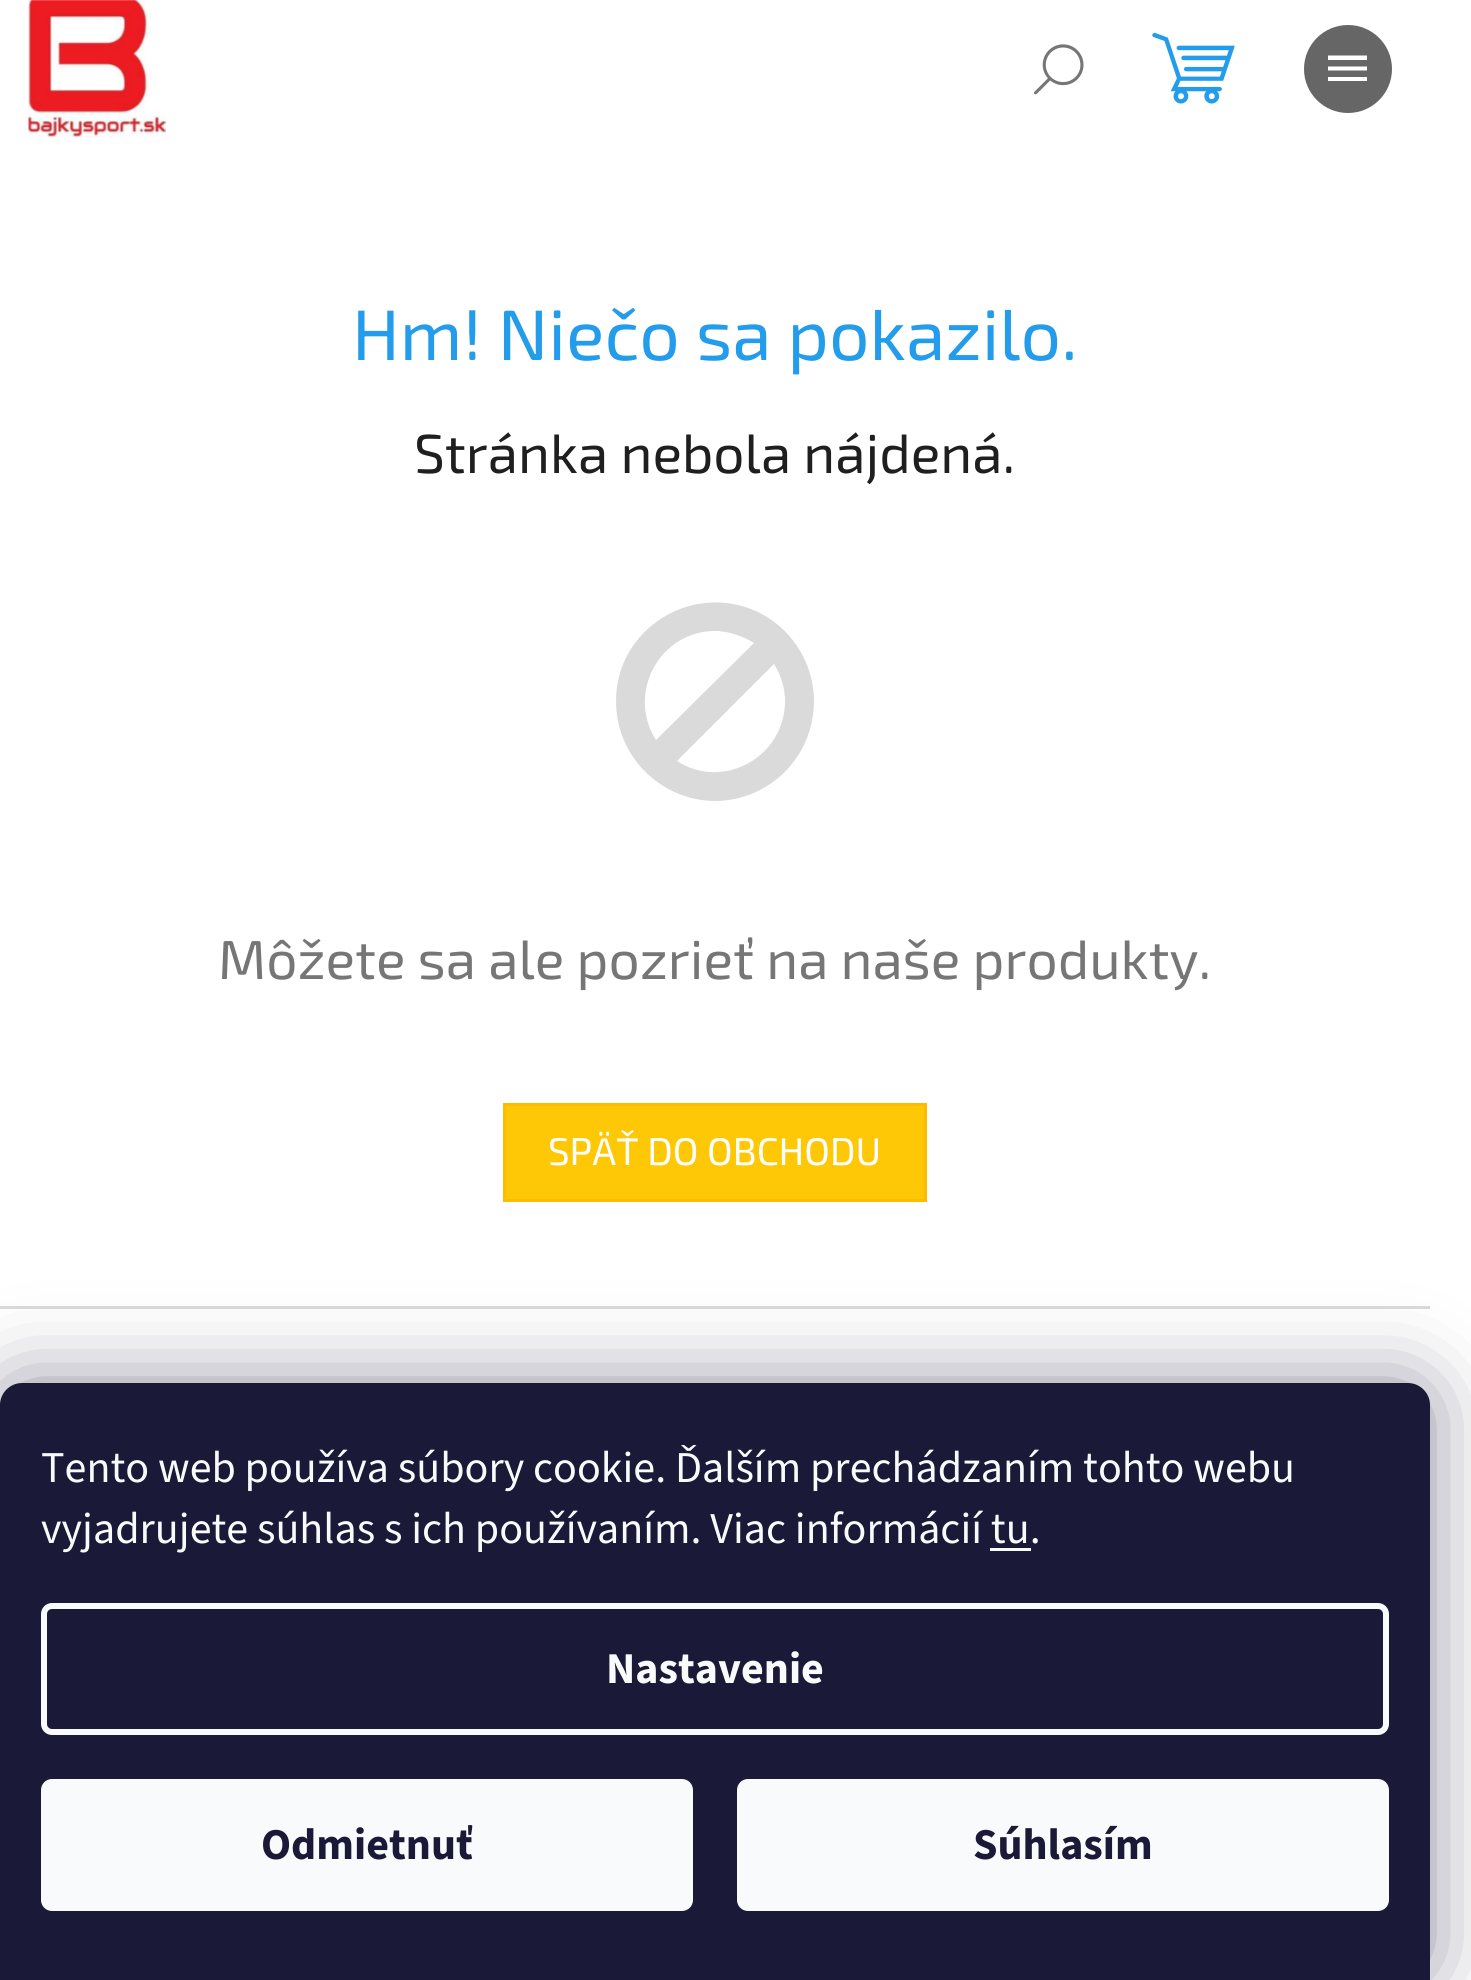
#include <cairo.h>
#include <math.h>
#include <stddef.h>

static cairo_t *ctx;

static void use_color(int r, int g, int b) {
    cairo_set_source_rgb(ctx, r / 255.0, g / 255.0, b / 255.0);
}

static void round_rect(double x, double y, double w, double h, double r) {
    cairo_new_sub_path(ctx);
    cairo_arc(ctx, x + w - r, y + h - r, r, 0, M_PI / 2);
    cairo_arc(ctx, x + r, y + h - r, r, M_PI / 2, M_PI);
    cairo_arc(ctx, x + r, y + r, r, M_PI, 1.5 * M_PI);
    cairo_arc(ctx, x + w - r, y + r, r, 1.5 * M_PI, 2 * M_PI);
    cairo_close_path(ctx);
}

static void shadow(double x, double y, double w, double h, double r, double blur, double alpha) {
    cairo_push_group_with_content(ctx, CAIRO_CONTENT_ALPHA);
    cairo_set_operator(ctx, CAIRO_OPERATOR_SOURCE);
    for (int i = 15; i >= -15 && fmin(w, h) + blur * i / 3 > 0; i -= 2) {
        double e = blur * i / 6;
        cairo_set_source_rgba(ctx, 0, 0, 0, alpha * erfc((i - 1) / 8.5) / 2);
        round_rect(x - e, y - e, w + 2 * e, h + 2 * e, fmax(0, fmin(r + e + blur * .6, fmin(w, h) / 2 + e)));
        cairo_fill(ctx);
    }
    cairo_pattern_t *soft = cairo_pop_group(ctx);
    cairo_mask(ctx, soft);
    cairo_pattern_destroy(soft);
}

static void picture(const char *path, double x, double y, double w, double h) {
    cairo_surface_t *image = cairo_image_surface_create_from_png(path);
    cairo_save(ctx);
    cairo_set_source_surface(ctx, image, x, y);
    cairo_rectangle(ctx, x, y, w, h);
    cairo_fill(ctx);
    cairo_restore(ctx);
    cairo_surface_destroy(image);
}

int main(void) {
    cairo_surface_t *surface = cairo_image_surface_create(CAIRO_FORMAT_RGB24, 1471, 1980);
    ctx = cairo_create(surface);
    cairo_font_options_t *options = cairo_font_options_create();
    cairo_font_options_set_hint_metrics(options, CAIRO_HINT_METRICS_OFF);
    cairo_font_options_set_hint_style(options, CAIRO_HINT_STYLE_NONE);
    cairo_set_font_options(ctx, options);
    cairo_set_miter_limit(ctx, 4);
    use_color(255, 255, 255);
    cairo_paint(ctx);
    picture("img1.png", 28, 0, 138, 138);
    picture("img2.png", 1152, 32, 83, 72);
    picture("img3.png", 1034, 44, 50, 51);
    use_color(102, 102, 102);
    cairo_arc(ctx, 1348, 69, 44, 0, 2 * M_PI);
    cairo_fill(ctx);
    use_color(255, 255, 255);
    cairo_new_path(ctx);
    cairo_move_to(ctx, 1328, 81);
    cairo_line_to(ctx, 1367, 81);
    cairo_line_to(ctx, 1367, 77);
    cairo_line_to(ctx, 1328, 77);
    cairo_close_path(ctx);
    cairo_move_to(ctx, 1328, 70.5);
    cairo_line_to(ctx, 1367, 70.5);
    cairo_line_to(ctx, 1367, 66.5);
    cairo_line_to(ctx, 1328, 66.5);
    cairo_close_path(ctx);
    cairo_move_to(ctx, 1328, 55.5);
    cairo_line_to(ctx, 1328, 60);
    cairo_line_to(ctx, 1367, 60);
    cairo_line_to(ctx, 1367, 55.5);
    cairo_close_path(ctx);
    cairo_fill(ctx);
    cairo_select_font_face(ctx, "Exo 2", CAIRO_FONT_SLANT_NORMAL, CAIRO_FONT_WEIGHT_NORMAL);
    cairo_set_font_size(ctx, 71.5);
    use_color(35, 156, 235);
    cairo_move_to(ctx, 352, 360);
    cairo_show_text(ctx, "Hm! Niečo sa pokazilo.");
    cairo_set_font_size(ctx, 55);
    use_color(31, 31, 31);
    cairo_move_to(ctx, 414, 473);
    cairo_show_text(ctx, "Stránka nebola nájdená.");
    use_color(218, 218, 218);
    cairo_new_path(ctx);
    cairo_move_to(ctx, 785, 701);
    cairo_curve_to(ctx, 785, 688, 781, 675, 774, 664);
    cairo_line_to(ctx, 677, 761);
    cairo_curve_to(ctx, 723, 791, 785, 757, 785, 701);
    cairo_close_path(ctx);
    cairo_move_to(ctx, 656, 740);
    cairo_line_to(ctx, 754, 643);
    cairo_curve_to(ctx, 743, 636, 730, 632, 718, 631);
    cairo_curve_to(ctx, 660, 629, 626, 693, 656, 740);
    cairo_close_path(ctx);
    cairo_move_to(ctx, 814, 701);
    cairo_curve_to(ctx, 814, 721, 808, 741, 797, 757);
    cairo_curve_to(ctx, 787, 772, 774, 783, 758, 791);
    cairo_curve_to(ctx, 692, 823, 616, 774, 616, 701);
    cairo_curve_to(ctx, 616, 629, 692, 581, 758, 612);
    cairo_curve_to(ctx, 774, 620, 787, 631, 797, 646);
    cairo_curve_to(ctx, 808, 662, 814, 682, 814, 701);
    cairo_close_path(ctx);
    cairo_fill(ctx);
    use_color(118, 118, 118);
    cairo_move_to(ctx, 218, 979);
    cairo_show_text(ctx, "Môžete sa ale pozrieť na naše produkty.");
    use_color(255, 200, 7);
    cairo_rectangle(ctx, 504.5, 1104.5, 421, 96);
    cairo_fill_preserve(ctx);
    use_color(255, 187, 0);
    cairo_set_line_width(ctx, 3);
    cairo_stroke(ctx);
    cairo_set_font_size(ctx, 38.5);
    use_color(255, 255, 255);
    cairo_move_to(ctx, 548, 1165);
    cairo_show_text(ctx, "SPÄŤ DO OBCHODU");
    use_color(218, 218, 218);
    cairo_rectangle(ctx, 0, 1306, 1430, 3);
    cairo_fill(ctx);
    use_color(27, 25, 57);
    shadow(0, 1383, 1430, 597, 22, 41, 0.5);
    use_color(26, 25, 55);
    cairo_new_path(ctx);
    cairo_move_to(ctx, 22, 1383);
    cairo_line_to(ctx, 1408, 1383);
    cairo_curve_to(ctx, 1420, 1383, 1430, 1393, 1430, 1405);
    cairo_line_to(ctx, 1430, 1980);
    cairo_line_to(ctx, 0, 1980);
    cairo_line_to(ctx, 0, 1405);
    cairo_curve_to(ctx, 0, 1393, 10, 1383, 22, 1383);
    cairo_close_path(ctx);
    cairo_fill(ctx);
    cairo_select_font_face(ctx, "Source Sans 3", CAIRO_FONT_SLANT_NORMAL, CAIRO_FONT_WEIGHT_NORMAL);
    cairo_set_font_size(ctx, 44);
    use_color(248, 250, 251);
    cairo_move_to(ctx, 41, 1482);
    cairo_show_text(ctx, "Tento web používa súbory cookie. Ďalším prechádzaním tohto webu");
    cairo_move_to(ctx, 41, 1543);
    cairo_show_text(ctx, "vyjadrujete súhlas s ich používaním. Viac informácií tu.");
    cairo_rectangle(ctx, 990, 1548, 41, 3);
    cairo_fill(ctx);
    round_rect(44, 1606, 1342, 126, 8);
    cairo_set_line_width(ctx, 6);
    cairo_stroke(ctx);
    cairo_select_font_face(ctx, "Source Sans 3", CAIRO_FONT_SLANT_NORMAL, CAIRO_FONT_WEIGHT_BOLD);
    cairo_move_to(ctx, 606, 1683);
    cairo_show_text(ctx, "Nastavenie");
    round_rect(41, 1779, 652, 132, 11);
    cairo_fill(ctx);
    use_color(26, 25, 55);
    cairo_move_to(ctx, 261, 1859);
    cairo_show_text(ctx, "Odmietnuť");
    use_color(248, 250, 251);
    round_rect(737, 1779, 652, 132, 11);
    cairo_fill(ctx);
    use_color(26, 25, 55);
    cairo_move_to(ctx, 973, 1859);
    cairo_show_text(ctx, "Súhlasím");
    cairo_surface_write_to_png(surface, "result.png");
    cairo_font_options_destroy(options);
    cairo_destroy(ctx);
    cairo_surface_destroy(surface);
    return 0;
}
